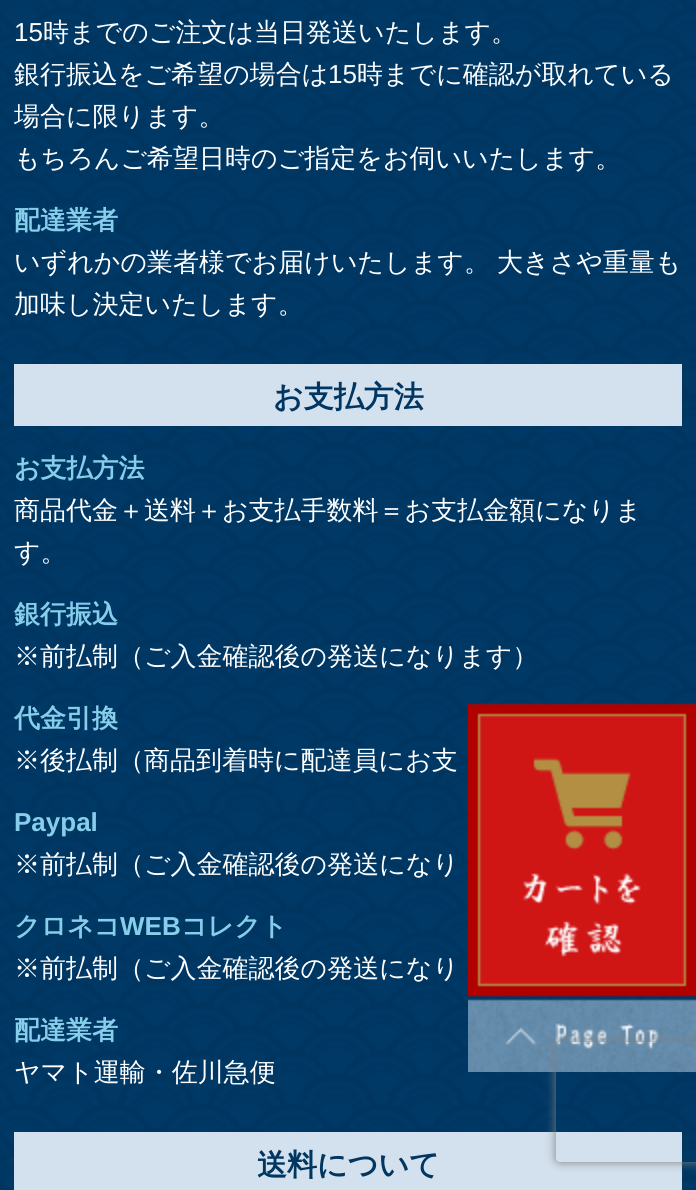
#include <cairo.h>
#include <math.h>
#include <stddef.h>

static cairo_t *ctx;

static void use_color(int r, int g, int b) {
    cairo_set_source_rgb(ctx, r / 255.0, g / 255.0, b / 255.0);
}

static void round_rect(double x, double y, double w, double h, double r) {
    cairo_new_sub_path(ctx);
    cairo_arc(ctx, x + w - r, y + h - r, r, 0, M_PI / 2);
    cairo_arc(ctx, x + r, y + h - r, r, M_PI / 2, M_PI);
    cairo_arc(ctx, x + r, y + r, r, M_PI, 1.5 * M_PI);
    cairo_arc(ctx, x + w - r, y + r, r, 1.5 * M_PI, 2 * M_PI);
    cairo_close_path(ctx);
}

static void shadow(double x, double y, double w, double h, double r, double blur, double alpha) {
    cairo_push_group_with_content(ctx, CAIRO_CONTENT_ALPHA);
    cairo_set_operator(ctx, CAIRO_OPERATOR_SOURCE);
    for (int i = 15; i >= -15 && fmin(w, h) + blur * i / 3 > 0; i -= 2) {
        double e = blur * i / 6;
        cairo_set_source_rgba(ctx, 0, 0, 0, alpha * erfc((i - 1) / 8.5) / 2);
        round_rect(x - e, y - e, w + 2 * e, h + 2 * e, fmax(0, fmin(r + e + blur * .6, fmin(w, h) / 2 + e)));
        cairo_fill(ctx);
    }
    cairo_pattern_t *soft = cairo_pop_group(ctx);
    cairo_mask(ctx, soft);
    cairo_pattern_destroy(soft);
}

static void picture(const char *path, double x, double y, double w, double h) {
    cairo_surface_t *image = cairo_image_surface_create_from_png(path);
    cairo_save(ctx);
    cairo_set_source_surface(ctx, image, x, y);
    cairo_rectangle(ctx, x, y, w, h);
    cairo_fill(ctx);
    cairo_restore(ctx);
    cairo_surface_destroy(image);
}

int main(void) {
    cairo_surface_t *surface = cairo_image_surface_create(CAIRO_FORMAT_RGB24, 696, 1190);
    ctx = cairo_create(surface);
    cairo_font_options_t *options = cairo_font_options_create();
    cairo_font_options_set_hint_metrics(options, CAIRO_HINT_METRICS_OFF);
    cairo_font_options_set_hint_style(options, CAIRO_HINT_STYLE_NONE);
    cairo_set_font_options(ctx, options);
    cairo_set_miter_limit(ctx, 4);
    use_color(255, 255, 255);
    cairo_paint(ctx);
    picture("img1.png", 0, 0, 696, 1190);
    cairo_select_font_face(ctx, "Liberation Sans", CAIRO_FONT_SLANT_NORMAL, CAIRO_FONT_WEIGHT_NORMAL);
    cairo_set_font_size(ctx, 26);
    use_color(255, 255, 255);
    cairo_move_to(ctx, 14, 41);
    cairo_show_text(ctx, "15");
    cairo_select_font_face(ctx, "WenQuanYi Zen Hei Medium", CAIRO_FONT_SLANT_NORMAL, CAIRO_FONT_WEIGHT_NORMAL);
    cairo_move_to(ctx, 43, 41);
    cairo_show_text(ctx, "時までのご注文は当日発送いたします。");
    cairo_move_to(ctx, 14, 83);
    cairo_show_text(ctx, "銀行振込をご希望の場合は");
    cairo_select_font_face(ctx, "Liberation Sans", CAIRO_FONT_SLANT_NORMAL, CAIRO_FONT_WEIGHT_NORMAL);
    cairo_move_to(ctx, 328, 83);
    cairo_show_text(ctx, "15");
    cairo_select_font_face(ctx, "WenQuanYi Zen Hei Medium", CAIRO_FONT_SLANT_NORMAL, CAIRO_FONT_WEIGHT_NORMAL);
    cairo_move_to(ctx, 357, 83);
    cairo_show_text(ctx, "時までに確認が取れている");
    cairo_move_to(ctx, 14, 125);
    cairo_show_text(ctx, "場合に限ります。");
    cairo_move_to(ctx, 14, 167);
    cairo_show_text(ctx, "もちろんご希望日時のご指定をお伺いいたします。");
    cairo_select_font_face(ctx, "WenQuanYi Zen Hei", CAIRO_FONT_SLANT_NORMAL, CAIRO_FONT_WEIGHT_BOLD);
    use_color(135, 206, 235);
    cairo_move_to(ctx, 14, 229);
    cairo_show_text(ctx, "配達業者");
    cairo_select_font_face(ctx, "WenQuanYi Zen Hei Medium", CAIRO_FONT_SLANT_NORMAL, CAIRO_FONT_WEIGHT_NORMAL);
    use_color(255, 255, 255);
    cairo_move_to(ctx, 14, 271);
    cairo_show_text(ctx, "いずれかの業者様でお届けいたします。");
    cairo_move_to(ctx, 497, 271);
    cairo_show_text(ctx, "大きさや重量も");
    cairo_move_to(ctx, 14, 313);
    cairo_show_text(ctx, "加味し決定いたします。");
    use_color(210, 225, 237);
    cairo_rectangle(ctx, 14, 364, 668, 62);
    cairo_fill(ctx);
    cairo_select_font_face(ctx, "WenQuanYi Zen Hei", CAIRO_FONT_SLANT_NORMAL, CAIRO_FONT_WEIGHT_BOLD);
    cairo_set_font_size(ctx, 30);
    use_color(0, 54, 97);
    cairo_move_to(ctx, 273, 407);
    cairo_show_text(ctx, "お支払方法");
    cairo_set_font_size(ctx, 26);
    use_color(135, 206, 235);
    cairo_move_to(ctx, 14, 477);
    cairo_show_text(ctx, "お支払方法");
    cairo_select_font_face(ctx, "WenQuanYi Zen Hei Medium", CAIRO_FONT_SLANT_NORMAL, CAIRO_FONT_WEIGHT_NORMAL);
    use_color(255, 255, 255);
    cairo_move_to(ctx, 14, 519);
    cairo_show_text(ctx, "商品代金＋送料＋お支払手数料＝お支払金額になりま");
    cairo_move_to(ctx, 14, 561);
    cairo_show_text(ctx, "す。");
    cairo_select_font_face(ctx, "WenQuanYi Zen Hei", CAIRO_FONT_SLANT_NORMAL, CAIRO_FONT_WEIGHT_BOLD);
    use_color(135, 206, 235);
    cairo_move_to(ctx, 14, 623);
    cairo_show_text(ctx, "銀行振込");
    cairo_select_font_face(ctx, "WenQuanYi Zen Hei Medium", CAIRO_FONT_SLANT_NORMAL, CAIRO_FONT_WEIGHT_NORMAL);
    use_color(255, 255, 255);
    cairo_move_to(ctx, 14, 665);
    cairo_show_text(ctx, "※前払制（ご入金確認後の発送になります）");
    cairo_select_font_face(ctx, "WenQuanYi Zen Hei", CAIRO_FONT_SLANT_NORMAL, CAIRO_FONT_WEIGHT_BOLD);
    use_color(135, 206, 235);
    cairo_move_to(ctx, 14, 727);
    cairo_show_text(ctx, "代金引換");
    cairo_select_font_face(ctx, "WenQuanYi Zen Hei Medium", CAIRO_FONT_SLANT_NORMAL, CAIRO_FONT_WEIGHT_NORMAL);
    use_color(255, 255, 255);
    cairo_move_to(ctx, 14, 769);
    cairo_show_text(ctx, "※後払制（商品到着時に配達員にお支");
    cairo_select_font_face(ctx, "Liberation Sans", CAIRO_FONT_SLANT_NORMAL, CAIRO_FONT_WEIGHT_BOLD);
    use_color(135, 206, 235);
    cairo_move_to(ctx, 14, 831);
    cairo_show_text(ctx, "Paypal");
    cairo_select_font_face(ctx, "WenQuanYi Zen Hei Medium", CAIRO_FONT_SLANT_NORMAL, CAIRO_FONT_WEIGHT_NORMAL);
    use_color(255, 255, 255);
    cairo_move_to(ctx, 14, 873);
    cairo_show_text(ctx, "※前払制（ご入金確認後の発送になり");
    cairo_select_font_face(ctx, "WenQuanYi Zen Hei", CAIRO_FONT_SLANT_NORMAL, CAIRO_FONT_WEIGHT_BOLD);
    use_color(135, 206, 235);
    cairo_move_to(ctx, 14, 935);
    cairo_show_text(ctx, "クロネコ");
    cairo_select_font_face(ctx, "Liberation Sans", CAIRO_FONT_SLANT_NORMAL, CAIRO_FONT_WEIGHT_BOLD);
    cairo_move_to(ctx, 120, 935);
    cairo_show_text(ctx, "WEB");
    cairo_select_font_face(ctx, "WenQuanYi Zen Hei", CAIRO_FONT_SLANT_NORMAL, CAIRO_FONT_WEIGHT_BOLD);
    cairo_move_to(ctx, 181, 935);
    cairo_show_text(ctx, "コレクト");
    cairo_select_font_face(ctx, "WenQuanYi Zen Hei Medium", CAIRO_FONT_SLANT_NORMAL, CAIRO_FONT_WEIGHT_NORMAL);
    use_color(255, 255, 255);
    cairo_move_to(ctx, 14, 977);
    cairo_show_text(ctx, "※前払制（ご入金確認後の発送になり");
    cairo_select_font_face(ctx, "WenQuanYi Zen Hei", CAIRO_FONT_SLANT_NORMAL, CAIRO_FONT_WEIGHT_BOLD);
    use_color(135, 206, 235);
    cairo_move_to(ctx, 14, 1039);
    cairo_show_text(ctx, "配達業者");
    cairo_select_font_face(ctx, "WenQuanYi Zen Hei Medium", CAIRO_FONT_SLANT_NORMAL, CAIRO_FONT_WEIGHT_NORMAL);
    use_color(255, 255, 255);
    cairo_move_to(ctx, 14, 1081);
    cairo_show_text(ctx, "ヤマト運輸・佐川急便");
    use_color(210, 225, 237);
    cairo_rectangle(ctx, 14, 1132, 668, 58);
    cairo_fill(ctx);
    cairo_select_font_face(ctx, "WenQuanYi Zen Hei", CAIRO_FONT_SLANT_NORMAL, CAIRO_FONT_WEIGHT_BOLD);
    cairo_set_font_size(ctx, 30);
    use_color(0, 54, 97);
    cairo_move_to(ctx, 257, 1175);
    cairo_show_text(ctx, "送料について");
    picture("img2.png", 468, 703, 228, 294);
    picture("img3.png", 468, 999, 228, 73);
    cairo_save(ctx);
    cairo_set_fill_rule(ctx, CAIRO_FILL_RULE_EVEN_ODD);
    cairo_new_path(ctx);
    cairo_move_to(ctx, 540, 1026);
    cairo_line_to(ctx, 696, 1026);
    cairo_line_to(ctx, 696, 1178);
    cairo_line_to(ctx, 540, 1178);
    cairo_close_path(ctx);
    cairo_move_to(ctx, 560, 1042);
    cairo_line_to(ctx, 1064, 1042);
    cairo_curve_to(ctx, 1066, 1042, 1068, 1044, 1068, 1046);
    cairo_line_to(ctx, 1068, 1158);
    cairo_curve_to(ctx, 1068, 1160, 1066, 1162, 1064, 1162);
    cairo_line_to(ctx, 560, 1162);
    cairo_curve_to(ctx, 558, 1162, 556, 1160, 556, 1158);
    cairo_line_to(ctx, 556, 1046);
    cairo_curve_to(ctx, 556, 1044, 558, 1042, 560, 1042);
    cairo_close_path(ctx);
    cairo_clip(ctx);
    use_color(128, 128, 128);
    shadow(556, 1042, 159, 120, 4, 5, 1);
    cairo_restore(ctx);
    cairo_surface_write_to_png(surface, "result.png");
    cairo_font_options_destroy(options);
    cairo_destroy(ctx);
    cairo_surface_destroy(surface);
    return 0;
}
